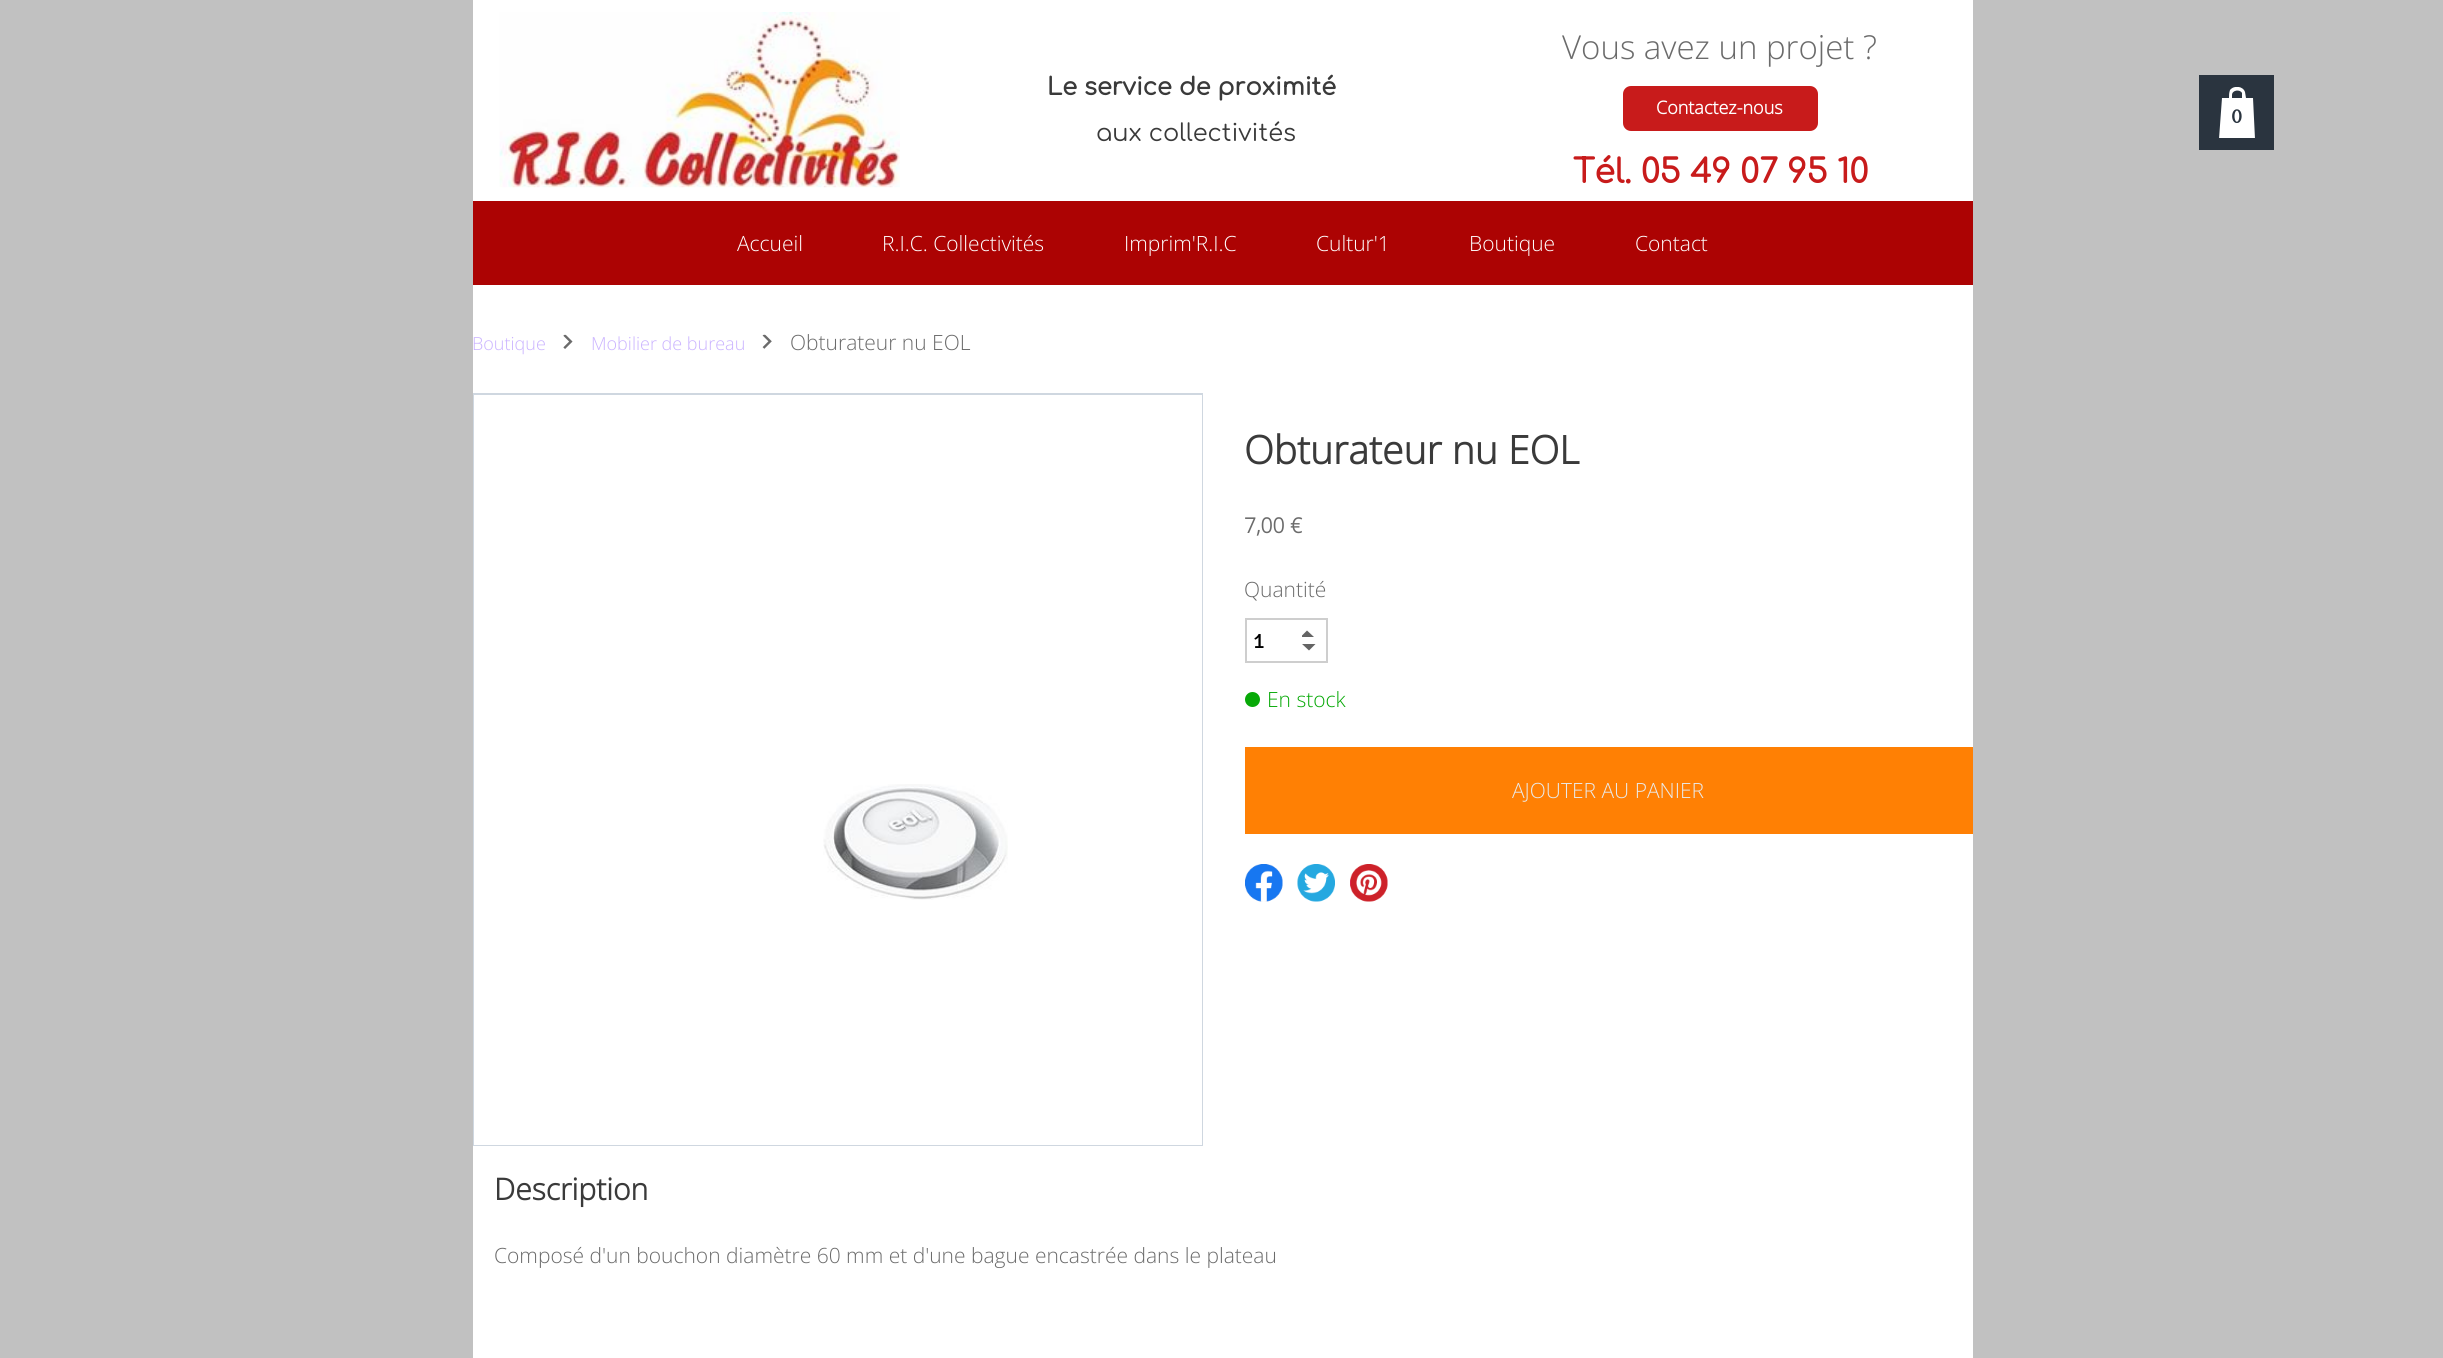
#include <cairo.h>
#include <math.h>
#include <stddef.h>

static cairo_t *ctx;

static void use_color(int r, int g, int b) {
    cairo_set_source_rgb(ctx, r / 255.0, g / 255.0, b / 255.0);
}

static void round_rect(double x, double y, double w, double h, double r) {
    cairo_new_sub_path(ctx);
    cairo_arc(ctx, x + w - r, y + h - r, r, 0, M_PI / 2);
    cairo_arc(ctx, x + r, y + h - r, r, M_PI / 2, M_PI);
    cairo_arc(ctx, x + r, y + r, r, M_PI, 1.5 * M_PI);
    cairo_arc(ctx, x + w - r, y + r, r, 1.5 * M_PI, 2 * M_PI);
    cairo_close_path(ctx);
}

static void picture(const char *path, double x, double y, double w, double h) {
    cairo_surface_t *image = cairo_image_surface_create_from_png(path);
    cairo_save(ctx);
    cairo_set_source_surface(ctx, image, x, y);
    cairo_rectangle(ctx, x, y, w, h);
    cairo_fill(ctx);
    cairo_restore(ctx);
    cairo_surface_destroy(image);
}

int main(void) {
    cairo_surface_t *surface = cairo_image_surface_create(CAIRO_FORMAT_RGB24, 2443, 1358);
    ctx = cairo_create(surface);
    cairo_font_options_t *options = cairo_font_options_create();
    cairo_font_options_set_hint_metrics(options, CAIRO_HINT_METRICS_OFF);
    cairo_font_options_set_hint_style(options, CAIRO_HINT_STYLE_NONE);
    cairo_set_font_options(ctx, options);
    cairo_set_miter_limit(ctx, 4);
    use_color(193, 193, 193);
    cairo_paint(ctx);
    use_color(255, 255, 255);
    cairo_rectangle(ctx, 473, 0, 1500, 201);
    cairo_fill(ctx);
    picture("img1.png", 499, 12, 401, 176);
    cairo_select_font_face(ctx, "Open Sans Light", CAIRO_FONT_SLANT_NORMAL, CAIRO_FONT_WEIGHT_NORMAL);
    cairo_set_font_size(ctx, 33);
    use_color(107, 107, 107);
    cairo_move_to(ctx, 1562, 59);
    cairo_show_text(ctx, "Vous avez un projet ?");
    cairo_select_font_face(ctx, "Comfortaa", CAIRO_FONT_SLANT_NORMAL, CAIRO_FONT_WEIGHT_BOLD);
    cairo_set_font_size(ctx, 24);
    use_color(58, 58, 58);
    cairo_move_to(ctx, 1047, 95);
    cairo_show_text(ctx, "Le service de proximité");
    use_color(200, 27, 27);
    round_rect(1623, 86, 195, 45, 8);
    cairo_fill(ctx);
    cairo_select_font_face(ctx, "Open Sans", CAIRO_FONT_SLANT_NORMAL, CAIRO_FONT_WEIGHT_BOLD);
    cairo_set_font_size(ctx, 18);
    use_color(255, 255, 255);
    cairo_move_to(ctx, 1656, 114);
    cairo_show_text(ctx, "Contactez-nous");
    cairo_select_font_face(ctx, "Comfortaa", CAIRO_FONT_SLANT_NORMAL, CAIRO_FONT_WEIGHT_NORMAL);
    cairo_set_font_size(ctx, 24);
    use_color(58, 58, 58);
    cairo_move_to(ctx, 1096, 141);
    cairo_show_text(ctx, "aux collectivités");
    cairo_select_font_face(ctx, "Comfortaa", CAIRO_FONT_SLANT_NORMAL, CAIRO_FONT_WEIGHT_BOLD);
    cairo_set_font_size(ctx, 33);
    use_color(200, 27, 27);
    cairo_move_to(ctx, 1573, 183);
    cairo_show_text(ctx, "Tél. 05 49 07 95 10");
    use_color(172, 3, 3);
    cairo_rectangle(ctx, 473, 201, 1500, 84);
    cairo_fill(ctx);
    cairo_select_font_face(ctx, "Open Sans Light", CAIRO_FONT_SLANT_NORMAL, CAIRO_FONT_WEIGHT_NORMAL);
    cairo_set_font_size(ctx, 21);
    use_color(255, 255, 255);
    cairo_move_to(ctx, 737, 251);
    cairo_show_text(ctx, "Accueil");
    cairo_move_to(ctx, 882, 251);
    cairo_show_text(ctx, "R.I.C. Collectivités");
    cairo_move_to(ctx, 1124, 251);
    cairo_show_text(ctx, "Imprim'R.I.C");
    cairo_move_to(ctx, 1316, 251);
    cairo_show_text(ctx, "Cultur'1");
    cairo_move_to(ctx, 1469, 251);
    cairo_show_text(ctx, "Boutique");
    cairo_move_to(ctx, 1635, 251);
    cairo_show_text(ctx, "Contact");
    cairo_rectangle(ctx, 473, 285, 1500, 1073);
    cairo_fill(ctx);
    cairo_set_font_size(ctx, 18);
    use_color(202, 179, 255);
    cairo_move_to(ctx, 472, 350);
    cairo_show_text(ctx, "Boutique");
    picture("img2.png", 563, 334, 10, 15);
    cairo_move_to(ctx, 591, 350);
    cairo_show_text(ctx, "Mobilier de bureau");
    picture("img3.png", 762, 334, 10, 15);
    cairo_set_font_size(ctx, 21);
    use_color(107, 107, 107);
    cairo_move_to(ctx, 790, 350);
    cairo_show_text(ctx, "Obturateur nu EOL");
    cairo_rectangle(ctx, 474, 394, 728, 751);
    use_color(207, 215, 224);
    cairo_stroke(ctx);
    use_color(255, 255, 255);
    cairo_rectangle(ctx, 474, 395, 728, 750);
    cairo_fill(ctx);
    picture("img4.png", 823, 784, 185, 116);
    cairo_select_font_face(ctx, "Open Sans", CAIRO_FONT_SLANT_NORMAL, CAIRO_FONT_WEIGHT_BOLD);
    cairo_set_font_size(ctx, 39);
    use_color(58, 58, 58);
    cairo_move_to(ctx, 1244, 464);
    cairo_show_text(ctx, "Obturateur nu EOL");
    cairo_set_font_size(ctx, 21);
    use_color(107, 107, 107);
    cairo_move_to(ctx, 1244, 533);
    cairo_show_text(ctx, "7,00 €");
    cairo_select_font_face(ctx, "Open Sans Light", CAIRO_FONT_SLANT_NORMAL, CAIRO_FONT_WEIGHT_NORMAL);
    cairo_move_to(ctx, 1244, 597);
    cairo_show_text(ctx, "Quantité");
    cairo_rectangle(ctx, 1246, 619, 81, 43);
    use_color(206, 206, 206);
    cairo_stroke(ctx);
    cairo_select_font_face(ctx, "Signika Light", CAIRO_FONT_SLANT_NORMAL, CAIRO_FONT_WEIGHT_NORMAL);
    cairo_set_font_size(ctx, 22);
    use_color(0, 0, 0);
    cairo_move_to(ctx, 1253, 648);
    cairo_show_text(ctx, "1");
    cairo_save(ctx);
    cairo_rectangle(ctx, 1302, 630, 14, 8);
    cairo_clip(ctx);
    use_color(100, 100, 100);
    cairo_new_path(ctx);
    cairo_move_to(ctx, 1314, 637);
    cairo_line_to(ctx, 1307, 630.5);
    cairo_line_to(ctx, 1300.5, 637);
    cairo_close_path(ctx);
    cairo_fill(ctx);
    cairo_restore(ctx);
    use_color(100, 100, 100);
    cairo_new_path(ctx);
    cairo_move_to(ctx, 1302, 644);
    cairo_line_to(ctx, 1309, 650.5);
    cairo_line_to(ctx, 1315.5, 644);
    cairo_close_path(ctx);
    cairo_fill(ctx);
    use_color(7, 169, 7);
    cairo_arc(ctx, 1252.5, 699.5, 7.5, 0, 2 * M_PI);
    cairo_fill(ctx);
    cairo_select_font_face(ctx, "Open Sans Light", CAIRO_FONT_SLANT_NORMAL, CAIRO_FONT_WEIGHT_NORMAL);
    cairo_set_font_size(ctx, 21);
    cairo_move_to(ctx, 1267, 707);
    cairo_show_text(ctx, "En stock");
    use_color(255, 128, 4);
    cairo_rectangle(ctx, 1245, 747, 728, 87);
    cairo_fill(ctx);
    use_color(233, 233, 233);
    cairo_move_to(ctx, 1512, 798);
    cairo_show_text(ctx, "AJOUTER AU PANIER");
    picture("img5.png", 1245, 864, 38, 38);
    picture("img6.png", 1297, 864, 38, 38);
    picture("img7.png", 1350, 864, 38, 38);
    cairo_select_font_face(ctx, "Open Sans", CAIRO_FONT_SLANT_NORMAL, CAIRO_FONT_WEIGHT_BOLD);
    cairo_set_font_size(ctx, 30);
    use_color(58, 58, 58);
    cairo_move_to(ctx, 494, 1200);
    cairo_show_text(ctx, "Description");
    cairo_select_font_face(ctx, "Open Sans Light", CAIRO_FONT_SLANT_NORMAL, CAIRO_FONT_WEIGHT_NORMAL);
    cairo_set_font_size(ctx, 21);
    use_color(107, 107, 107);
    cairo_move_to(ctx, 494, 1263);
    cairo_show_text(ctx, "Composé d'un bouchon diamètre 60 mm et d'une bague encastrée dans le plateau");
    use_color(42, 52, 63);
    cairo_rectangle(ctx, 2199, 75, 75, 75);
    cairo_fill(ctx);
    cairo_save(ctx);
    cairo_rectangle(ctx, 2219, 87, 37, 51);
    cairo_clip(ctx);
    use_color(255, 255, 255);
    cairo_new_path(ctx);
    cairo_move_to(ctx, 2253, 98);
    cairo_line_to(ctx, 2246, 98);
    cairo_line_to(ctx, 2245, 92);
    cairo_curve_to(ctx, 2243, 86, 2234, 85, 2230, 90);
    cairo_curve_to(ctx, 2229, 93, 2229, 95, 2229, 98);
    cairo_line_to(ctx, 2222, 98);
    cairo_line_to(ctx, 2219, 139);
    cairo_line_to(ctx, 2255, 139);
    cairo_close_path(ctx);
    cairo_move_to(ctx, 2232, 95);
    cairo_curve_to(ctx, 2232, 90, 2240, 89, 2242, 93);
    cairo_line_to(ctx, 2242, 98);
    cairo_line_to(ctx, 2232, 98);
    cairo_close_path(ctx);
    cairo_fill(ctx);
    cairo_restore(ctx);
    cairo_select_font_face(ctx, "Amiri", CAIRO_FONT_SLANT_NORMAL, CAIRO_FONT_WEIGHT_BOLD);
    cairo_move_to(ctx, 2231, 123);
    cairo_show_text(ctx, "0");
    cairo_surface_write_to_png(surface, "result.png");
    cairo_font_options_destroy(options);
    cairo_destroy(ctx);
    cairo_surface_destroy(surface);
    return 0;
}
